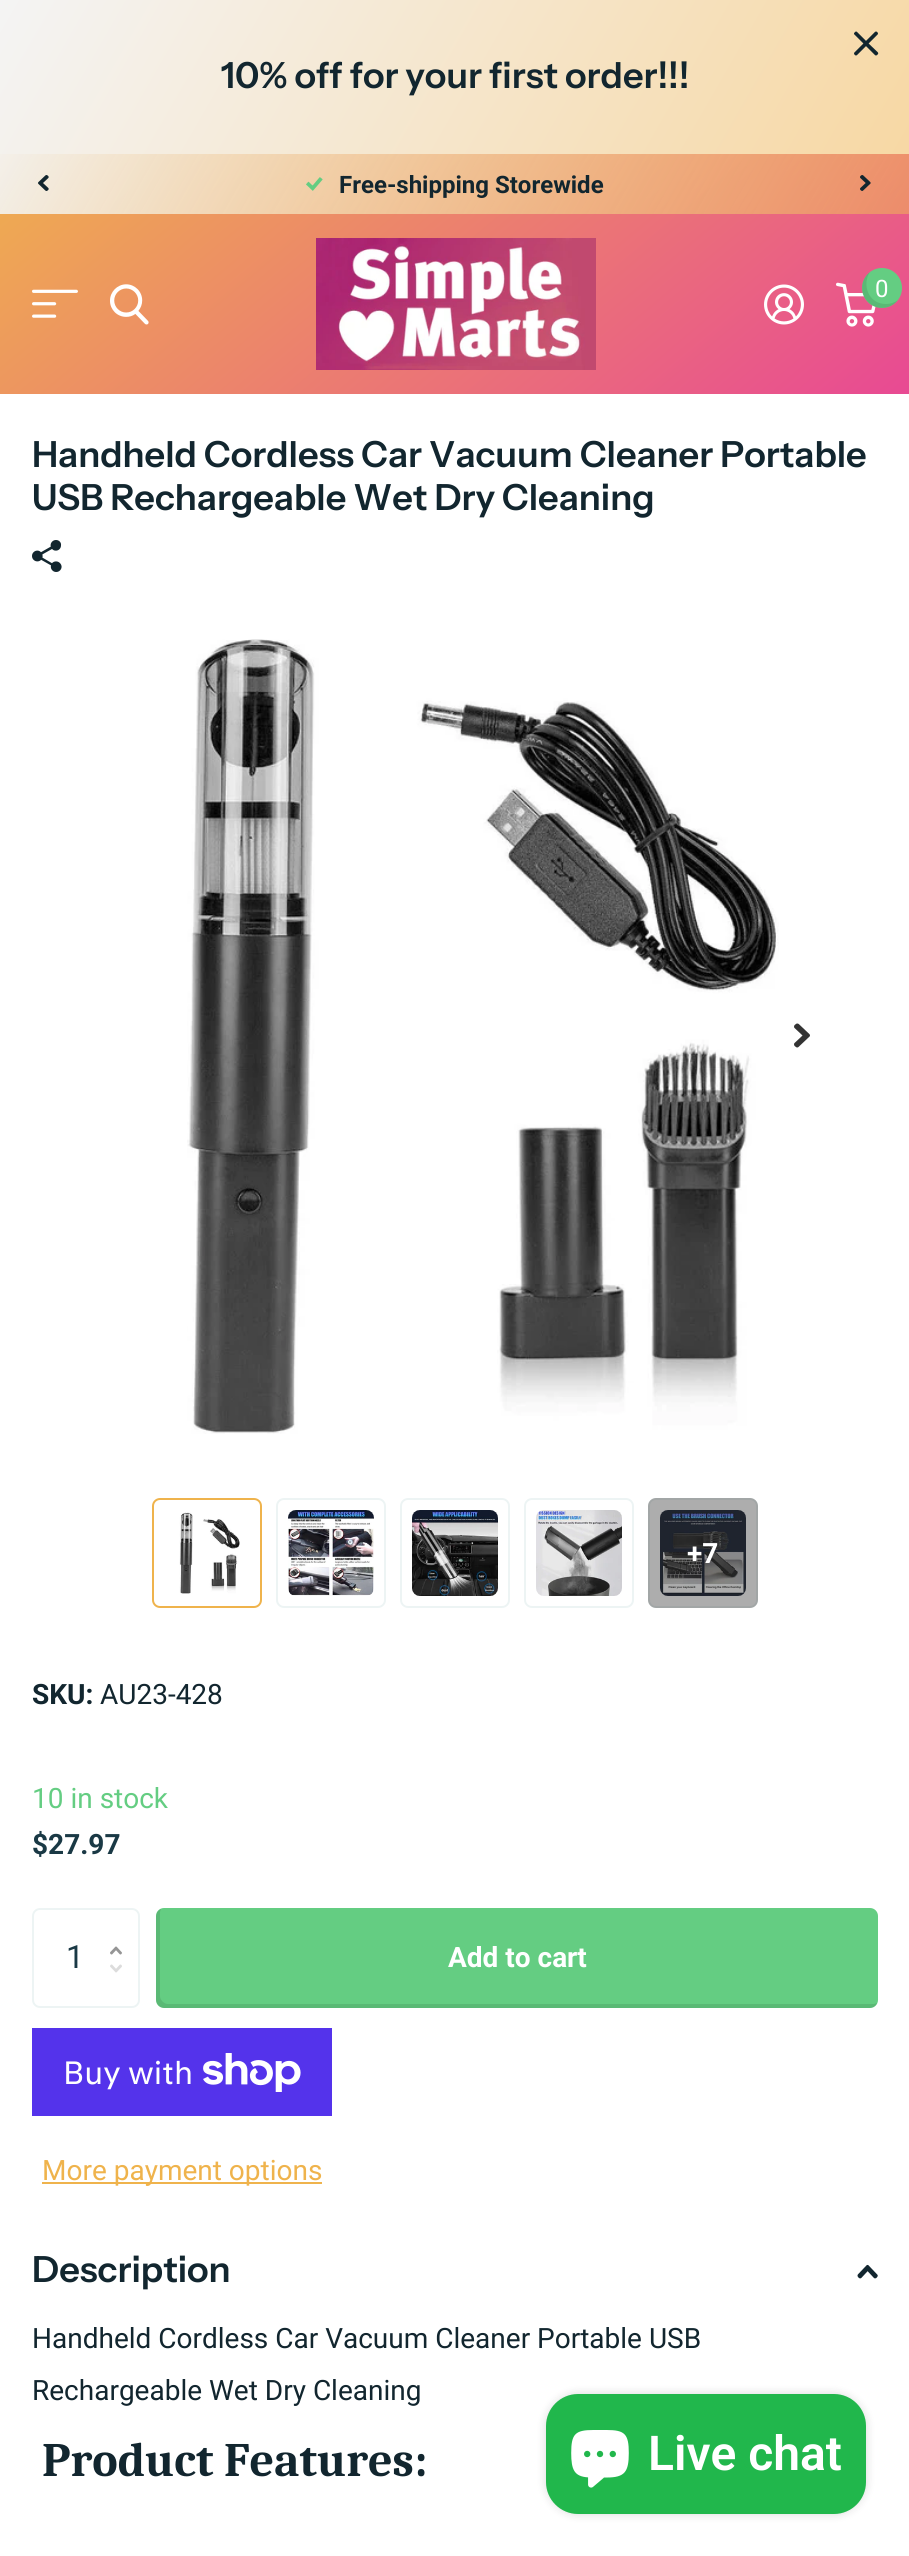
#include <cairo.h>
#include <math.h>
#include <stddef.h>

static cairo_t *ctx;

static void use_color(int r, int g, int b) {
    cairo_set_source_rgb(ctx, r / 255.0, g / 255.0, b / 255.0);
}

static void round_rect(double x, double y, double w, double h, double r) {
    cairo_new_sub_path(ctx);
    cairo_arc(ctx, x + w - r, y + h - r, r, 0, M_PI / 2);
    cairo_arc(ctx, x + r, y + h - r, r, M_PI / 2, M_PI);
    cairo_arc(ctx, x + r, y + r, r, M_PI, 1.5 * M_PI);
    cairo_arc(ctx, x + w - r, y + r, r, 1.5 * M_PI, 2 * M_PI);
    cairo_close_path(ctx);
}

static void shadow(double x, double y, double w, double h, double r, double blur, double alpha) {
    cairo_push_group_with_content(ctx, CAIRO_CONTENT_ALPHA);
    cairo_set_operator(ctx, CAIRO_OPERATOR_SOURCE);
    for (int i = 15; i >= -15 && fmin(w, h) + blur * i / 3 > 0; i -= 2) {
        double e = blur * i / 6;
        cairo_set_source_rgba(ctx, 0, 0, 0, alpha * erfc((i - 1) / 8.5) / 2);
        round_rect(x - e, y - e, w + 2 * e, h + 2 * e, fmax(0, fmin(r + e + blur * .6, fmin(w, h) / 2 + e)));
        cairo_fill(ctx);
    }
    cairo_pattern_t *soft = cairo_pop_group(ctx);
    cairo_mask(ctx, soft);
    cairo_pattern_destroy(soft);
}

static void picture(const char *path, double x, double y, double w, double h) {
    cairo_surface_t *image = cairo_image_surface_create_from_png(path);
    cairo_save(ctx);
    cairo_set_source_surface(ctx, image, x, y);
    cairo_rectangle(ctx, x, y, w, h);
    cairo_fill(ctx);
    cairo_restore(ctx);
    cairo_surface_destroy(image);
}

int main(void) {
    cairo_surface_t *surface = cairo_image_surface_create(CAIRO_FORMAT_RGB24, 909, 2556);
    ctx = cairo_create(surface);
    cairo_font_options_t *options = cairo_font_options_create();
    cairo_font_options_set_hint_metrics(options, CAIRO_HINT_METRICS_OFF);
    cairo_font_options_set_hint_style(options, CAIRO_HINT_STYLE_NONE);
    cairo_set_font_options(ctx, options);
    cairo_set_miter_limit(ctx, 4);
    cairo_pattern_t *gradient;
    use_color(255, 255, 255);
    cairo_paint(ctx);
    gradient = cairo_pattern_create_linear(80, -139, 830, 293);
    cairo_pattern_add_color_stop_rgba(gradient, 0, 0.957, 0.957, 0.957, 1);
    cairo_pattern_add_color_stop_rgba(gradient, 1, 0.969, 0.847, 0.643, 1);
    cairo_set_source(ctx, gradient);
    cairo_pattern_destroy(gradient);
    cairo_rectangle(ctx, 0, 0, 909, 154);
    cairo_fill(ctx);
    picture("img1.png", 854, 31, 25, 25);
    cairo_select_font_face(ctx, "Instrument Sans SemiBold", CAIRO_FONT_SLANT_NORMAL, CAIRO_FONT_WEIGHT_NORMAL);
    cairo_set_font_size(ctx, 36);
    use_color(18, 38, 47);
    cairo_move_to(ctx, 221, 88);
    cairo_show_text(ctx, "10% off for your first order!!!");
    gradient = cairo_pattern_create_linear(721, 591, 189, -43);
    cairo_pattern_add_color_stop_rgba(gradient, 0.04, 0.91, 0.29, 0.576, 1);
    cairo_pattern_add_color_stop_rgba(gradient, 1, 0.937, 0.702, 0.298, 1);
    cairo_set_source(ctx, gradient);
    cairo_pattern_destroy(gradient);
    cairo_rectangle(ctx, 0, 154, 909, 240);
    cairo_fill(ctx);
    gradient = cairo_pattern_create_linear(66, -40, 844, 408);
    cairo_pattern_add_color_stop_rgba(gradient, 0, 0.957, 0.957, 0.957, 1);
    cairo_pattern_add_color_stop_rgba(gradient, 1, 0.937, 0.702, 0.298, 0.51);
    cairo_set_source(ctx, gradient);
    cairo_pattern_destroy(gradient);
    cairo_rectangle(ctx, 0, 154, 909, 60);
    cairo_fill(ctx);
    picture("img2.png", 38, 175, 11, 16);
    picture("img3.png", 306, 177, 17, 14);
    cairo_select_font_face(ctx, "Roboto", CAIRO_FONT_SLANT_NORMAL, CAIRO_FONT_WEIGHT_BOLD);
    cairo_set_font_size(ctx, 24);
    use_color(18, 38, 47);
    cairo_move_to(ctx, 339, 193);
    cairo_show_text(ctx, "Free-shipping Storewide");
    picture("img4.png", 860, 175, 11, 16);
    picture("img5.png", 32, 289, 46, 29);
    picture("img6.png", 110, 284, 39, 41);
    picture("img7.png", 316, 238, 280, 132);
    picture("img8.png", 764, 284, 40, 41);
    picture("img9.png", 836, 282, 40, 45);
    use_color(100, 205, 130);
    cairo_arc(ctx, 882, 288, 20, 0, 2 * M_PI);
    cairo_fill(ctx);
    cairo_set_source_rgba(ctx, 0, 0, 0, 0.1);
    cairo_new_path(ctx);
    cairo_move_to(ctx, 897.5, 300.5);
    cairo_curve_to(ctx, 894.5, 302.5, 890.5, 304, 886, 304);
    cairo_curve_to(ctx, 867.5, 304, 862, 283.5, 870, 272);
    cairo_curve_to(ctx, 860.5, 279, 859.5, 293.5, 868, 302);
    cairo_curve_to(ctx, 876, 310.5, 890.5, 309.5, 897.5, 300.5);
    cairo_close_path(ctx);
    cairo_fill(ctx);
    cairo_select_font_face(ctx, "Roboto", CAIRO_FONT_SLANT_NORMAL, CAIRO_FONT_WEIGHT_NORMAL);
    use_color(255, 255, 255);
    cairo_move_to(ctx, 875, 297);
    cairo_show_text(ctx, "0");
    cairo_select_font_face(ctx, "Instrument Sans SemiBold", CAIRO_FONT_SLANT_NORMAL, CAIRO_FONT_WEIGHT_NORMAL);
    cairo_set_font_size(ctx, 36);
    use_color(18, 38, 47);
    cairo_move_to(ctx, 32, 467);
    cairo_show_text(ctx, "Handheld Cordless Car Vacuum Cleaner Portable");
    cairo_move_to(ctx, 32, 510);
    cairo_show_text(ctx, "USB Rechargeable Wet Dry Cleaning");
    picture("img10.png", 32, 540, 30, 32);
    picture("img11.png", 187, 639, 592, 795);
    picture("img12.png", 794, 1023, 16, 25);
    round_rect(153, 1499, 108, 108, 7);
    use_color(239, 179, 76);
    cairo_stroke(ctx);
    picture("img13.png", 179, 1512, 61, 82);
    round_rect(277, 1499, 108, 108, 7);
    use_color(237, 244, 244);
    cairo_stroke(ctx);
    picture("img14.png", 288, 1510, 86, 86);
    round_rect(401, 1499, 108, 108, 7);
    cairo_stroke(ctx);
    picture("img15.png", 412, 1510, 86, 86);
    round_rect(525, 1499, 108, 108, 7);
    cairo_stroke(ctx);
    picture("img16.png", 536, 1510, 86, 86);
    round_rect(649, 1499, 108, 108, 7);
    cairo_stroke(ctx);
    picture("img17.png", 660, 1510, 86, 86);
    cairo_set_source_rgba(ctx, 0.2, 0.2, 0.2, 0.4);
    round_rect(648, 1498, 110, 110, 8);
    cairo_fill(ctx);
    cairo_select_font_face(ctx, "Roboto", CAIRO_FONT_SLANT_NORMAL, CAIRO_FONT_WEIGHT_BOLD);
    cairo_set_font_size(ctx, 28);
    use_color(255, 255, 255);
    cairo_move_to(ctx, 687, 1563);
    cairo_show_text(ctx, "+7");
    use_color(18, 38, 47);
    cairo_move_to(ctx, 32, 1704);
    cairo_show_text(ctx, "SKU:");
    cairo_select_font_face(ctx, "Roboto", CAIRO_FONT_SLANT_NORMAL, CAIRO_FONT_WEIGHT_NORMAL);
    cairo_move_to(ctx, 100, 1704);
    cairo_show_text(ctx, "AU23-428");
    use_color(100, 205, 130);
    cairo_move_to(ctx, 32, 1808);
    cairo_show_text(ctx, "10 in stock");
    cairo_select_font_face(ctx, "Roboto", CAIRO_FONT_SLANT_NORMAL, CAIRO_FONT_WEIGHT_BOLD);
    use_color(26, 57, 69);
    cairo_move_to(ctx, 32, 1854);
    cairo_show_text(ctx, "$27.97");
    round_rect(33, 1909, 106, 98, 7);
    use_color(237, 244, 244);
    cairo_stroke(ctx);
    cairo_select_font_face(ctx, "Roboto", CAIRO_FONT_SLANT_NORMAL, CAIRO_FONT_WEIGHT_NORMAL);
    cairo_set_font_size(ctx, 32);
    use_color(26, 57, 69);
    cairo_move_to(ctx, 66, 1968);
    cairo_show_text(ctx, "1");
    picture("img18.png", 110, 1946, 12, 9);
    picture("img19.png", 110, 1964, 12, 9);
    use_color(100, 205, 130);
    round_rect(156, 1908, 722, 100, 8);
    cairo_fill(ctx);
    cairo_set_source_rgba(ctx, 0, 0, 0, 0.1);
    cairo_new_path(ctx);
    cairo_move_to(ctx, 161, 1909);
    cairo_curve_to(ctx, 158, 1910, 156, 1913, 156, 1916);
    cairo_line_to(ctx, 156, 2000);
    cairo_curve_to(ctx, 156, 2004, 160, 2008, 164, 2008);
    cairo_line_to(ctx, 870, 2008);
    cairo_curve_to(ctx, 873, 2008, 876, 2006, 877, 2003);
    cairo_line_to(ctx, 874, 2004);
    cairo_line_to(ctx, 168, 2004);
    cairo_curve_to(ctx, 164, 2004, 160, 2000, 160, 1996);
    cairo_line_to(ctx, 160, 1912);
    cairo_close_path(ctx);
    cairo_fill(ctx);
    cairo_select_font_face(ctx, "Roboto", CAIRO_FONT_SLANT_NORMAL, CAIRO_FONT_WEIGHT_BOLD);
    cairo_set_font_size(ctx, 28);
    use_color(255, 255, 255);
    cairo_move_to(ctx, 448, 1967);
    cairo_show_text(ctx, "Add to cart");
    use_color(84, 51, 235);
    cairo_rectangle(ctx, 32, 2028, 300, 88);
    cairo_fill(ctx);
    cairo_select_font_face(ctx, "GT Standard", CAIRO_FONT_SLANT_NORMAL, CAIRO_FONT_WEIGHT_NORMAL);
    cairo_set_font_size(ctx, 32);
    use_color(255, 255, 255);
    cairo_move_to(ctx, 63, 2084);
    cairo_show_text(ctx, "Buy with");
    picture("img20.png", 203, 2053, 98, 39);
    use_color(239, 179, 76);
    cairo_rectangle(ctx, 42, 2182, 280, 2);
    cairo_fill(ctx);
    cairo_select_font_face(ctx, "Roboto", CAIRO_FONT_SLANT_NORMAL, CAIRO_FONT_WEIGHT_NORMAL);
    cairo_set_font_size(ctx, 28);
    cairo_move_to(ctx, 42, 2180);
    cairo_show_text(ctx, "More payment options");
    cairo_select_font_face(ctx, "Instrument Sans SemiBold", CAIRO_FONT_SLANT_NORMAL, CAIRO_FONT_WEIGHT_NORMAL);
    cairo_set_font_size(ctx, 36);
    use_color(18, 38, 47);
    cairo_move_to(ctx, 32, 2282);
    cairo_show_text(ctx, "Description");
    picture("img21.png", 857, 2264, 21, 15);
    cairo_select_font_face(ctx, "Roboto", CAIRO_FONT_SLANT_NORMAL, CAIRO_FONT_WEIGHT_NORMAL);
    cairo_set_font_size(ctx, 28);
    cairo_move_to(ctx, 32, 2348);
    cairo_show_text(ctx, "Handheld Cordless Car Vacuum Cleaner Portable USB");
    cairo_move_to(ctx, 32, 2400);
    cairo_show_text(ctx, "Rechargeable Wet Dry Cleaning");
    cairo_select_font_face(ctx, "Caladea", CAIRO_FONT_SLANT_NORMAL, CAIRO_FONT_WEIGHT_BOLD);
    cairo_set_font_size(ctx, 48);
    cairo_move_to(ctx, 42, 2476);
    cairo_show_text(ctx, "Product Features:");
    use_color(0, 0, 0);
    shadow(546, 2394, 320, 120, 32, 5, 0.15);
    use_color(33, 183, 76);
    round_rect(546, 2394, 320, 120, 32);
    cairo_fill(ctx);
    picture("img22.png", 571, 2430, 58, 58);
    cairo_select_font_face(ctx, "Roboto SemiBold", CAIRO_FONT_SLANT_NORMAL, CAIRO_FONT_WEIGHT_NORMAL);
    use_color(255, 255, 255);
    cairo_move_to(ctx, 648, 2470);
    cairo_show_text(ctx, "Live chat");
    cairo_surface_write_to_png(surface, "result.png");
    cairo_font_options_destroy(options);
    cairo_destroy(ctx);
    cairo_surface_destroy(surface);
    return 0;
}
